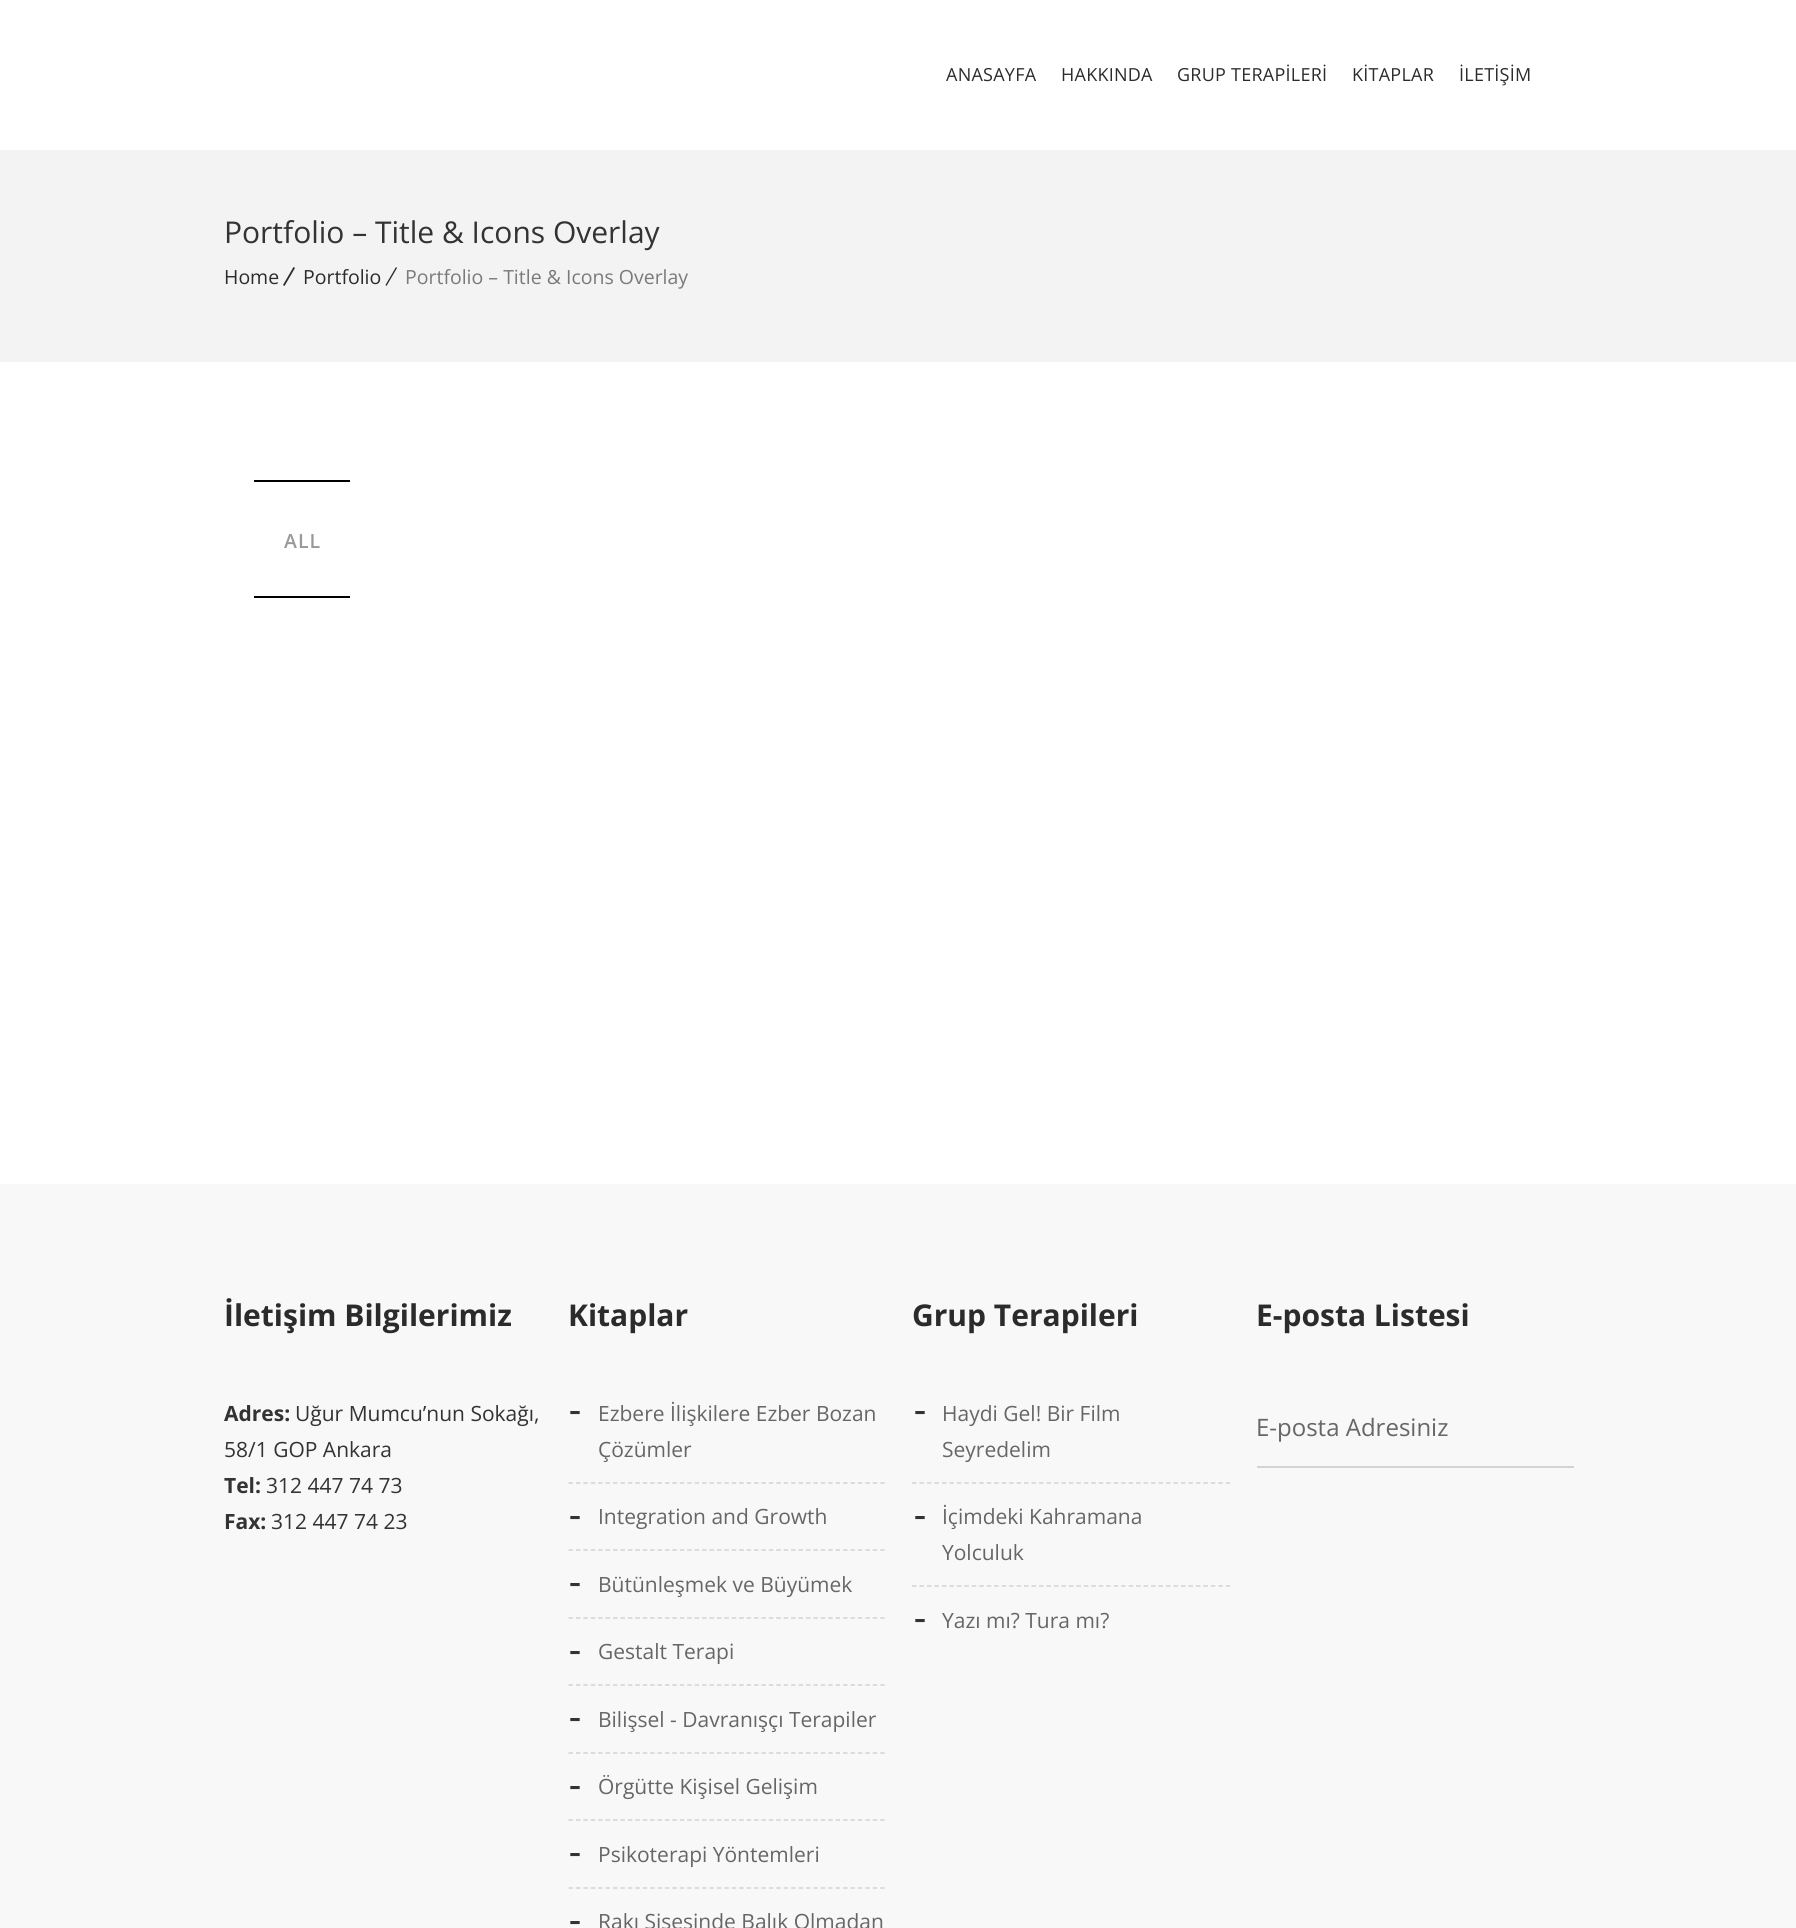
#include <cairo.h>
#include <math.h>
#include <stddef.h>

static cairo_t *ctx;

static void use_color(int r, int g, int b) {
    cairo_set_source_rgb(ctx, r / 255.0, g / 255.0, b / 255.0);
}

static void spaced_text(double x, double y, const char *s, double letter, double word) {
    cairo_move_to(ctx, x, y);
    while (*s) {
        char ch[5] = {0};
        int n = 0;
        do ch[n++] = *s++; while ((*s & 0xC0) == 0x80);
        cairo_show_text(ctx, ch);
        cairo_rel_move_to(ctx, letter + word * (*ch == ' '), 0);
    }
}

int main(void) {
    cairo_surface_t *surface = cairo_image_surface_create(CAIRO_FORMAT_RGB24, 1796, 1928);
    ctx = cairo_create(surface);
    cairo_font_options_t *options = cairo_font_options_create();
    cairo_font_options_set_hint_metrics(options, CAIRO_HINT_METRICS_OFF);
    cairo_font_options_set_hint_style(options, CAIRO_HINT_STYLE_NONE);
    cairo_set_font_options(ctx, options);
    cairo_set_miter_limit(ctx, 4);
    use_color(255, 255, 255);
    cairo_paint(ctx);
    cairo_select_font_face(ctx, "Open Sans", CAIRO_FONT_SLANT_NORMAL, CAIRO_FONT_WEIGHT_NORMAL);
    cairo_set_font_size(ctx, 18);
    use_color(43, 43, 43);
    spaced_text(946, 81, "ANASAYFA", 0.25, 0);
    spaced_text(1061, 81, "HAKKINDA", 0.25, 0);
    spaced_text(1177, 81, "GRUP TERAPİLERİ", 0.25, 0);
    spaced_text(1352, 81, "KİTAPLAR", 0.25, 0);
    spaced_text(1459, 81, "İLETİŞİM", 0.25, 0);
    use_color(243, 243, 243);
    cairo_rectangle(ctx, 0, 150, 1796, 212);
    cairo_fill(ctx);
    cairo_set_font_size(ctx, 30);
    use_color(51, 51, 51);
    cairo_move_to(ctx, 224, 243);
    cairo_show_text(ctx, "Portfolio – Title & Icons Overlay");
    cairo_set_font_size(ctx, 19.5);
    use_color(43, 43, 43);
    cairo_move_to(ctx, 224, 284);
    cairo_show_text(ctx, "Home");
    cairo_new_path(ctx);
    cairo_move_to(ctx, 293.5, 267);
    cairo_line_to(ctx, 295, 268);
    cairo_line_to(ctx, 284.5, 286);
    cairo_line_to(ctx, 283, 285);
    cairo_close_path(ctx);
    cairo_fill(ctx);
    cairo_move_to(ctx, 303, 284);
    cairo_show_text(ctx, "Portfolio");
    cairo_new_path(ctx);
    cairo_move_to(ctx, 396, 267);
    cairo_line_to(ctx, 397, 268);
    cairo_line_to(ctx, 386.5, 286);
    cairo_line_to(ctx, 385.5, 285);
    cairo_close_path(ctx);
    cairo_fill(ctx);
    use_color(122, 122, 122);
    cairo_move_to(ctx, 405, 284);
    cairo_show_text(ctx, "Portfolio – Title & Icons Overlay");
    use_color(0, 0, 0);
    cairo_rectangle(ctx, 254, 480, 96, 2);
    cairo_fill(ctx);
    cairo_rectangle(ctx, 254, 596, 96, 2);
    cairo_fill(ctx);
    cairo_select_font_face(ctx, "Open Sans SemiBold", CAIRO_FONT_SLANT_NORMAL, CAIRO_FONT_WEIGHT_NORMAL);
    use_color(153, 153, 153);
    spaced_text(284, 548, "ALL", 1, 0);
    use_color(248, 248, 249);
    cairo_rectangle(ctx, 0, 1184, 1796, 744);
    cairo_fill(ctx);
    cairo_select_font_face(ctx, "Open Sans", CAIRO_FONT_SLANT_NORMAL, CAIRO_FONT_WEIGHT_BOLD);
    cairo_set_font_size(ctx, 30);
    use_color(43, 43, 43);
    cairo_move_to(ctx, 224, 1326);
    cairo_show_text(ctx, "İletişim Bilgilerimiz");
    cairo_set_font_size(ctx, 21);
    use_color(51, 51, 51);
    cairo_move_to(ctx, 224, 1421);
    cairo_show_text(ctx, "Adres:");
    cairo_select_font_face(ctx, "Open Sans", CAIRO_FONT_SLANT_NORMAL, CAIRO_FONT_WEIGHT_NORMAL);
    cairo_move_to(ctx, 295, 1421);
    cairo_show_text(ctx, "Uğur Mumcu’nun Sokağı,");
    cairo_move_to(ctx, 224, 1457);
    cairo_show_text(ctx, "58/1 GOP Ankara");
    cairo_select_font_face(ctx, "Open Sans", CAIRO_FONT_SLANT_NORMAL, CAIRO_FONT_WEIGHT_BOLD);
    cairo_move_to(ctx, 224, 1493);
    cairo_show_text(ctx, "Tel:");
    cairo_select_font_face(ctx, "Open Sans", CAIRO_FONT_SLANT_NORMAL, CAIRO_FONT_WEIGHT_NORMAL);
    cairo_move_to(ctx, 266, 1493);
    cairo_show_text(ctx, "312 447 74 73");
    cairo_select_font_face(ctx, "Open Sans", CAIRO_FONT_SLANT_NORMAL, CAIRO_FONT_WEIGHT_BOLD);
    cairo_move_to(ctx, 224, 1529);
    cairo_show_text(ctx, "Fax:");
    cairo_select_font_face(ctx, "Open Sans", CAIRO_FONT_SLANT_NORMAL, CAIRO_FONT_WEIGHT_NORMAL);
    cairo_move_to(ctx, 271, 1529);
    cairo_show_text(ctx, "312 447 74 23");
    cairo_select_font_face(ctx, "Open Sans", CAIRO_FONT_SLANT_NORMAL, CAIRO_FONT_WEIGHT_BOLD);
    cairo_set_font_size(ctx, 30);
    use_color(43, 43, 43);
    cairo_move_to(ctx, 568, 1326);
    cairo_show_text(ctx, "Kitaplar");
    cairo_new_path(ctx);
    cairo_move_to(ctx, 568.5, 1483);
    cairo_line_to(ctx, 885, 1483);
    use_color(211, 211, 212);
    cairo_set_line_width(ctx, 1.5);
    cairo_set_dash(ctx, (double[]){4.5, 2.92}, 2, 0);
    cairo_stroke(ctx);
    cairo_select_font_face(ctx, "Liberation Serif", CAIRO_FONT_SLANT_NORMAL, CAIRO_FONT_WEIGHT_BOLD);
    cairo_set_font_size(ctx, 36);
    use_color(51, 51, 51);
    cairo_move_to(ctx, 569, 1421);
    cairo_show_text(ctx, "-");
    cairo_select_font_face(ctx, "Open Sans", CAIRO_FONT_SLANT_NORMAL, CAIRO_FONT_WEIGHT_NORMAL);
    cairo_set_font_size(ctx, 21);
    use_color(102, 102, 102);
    cairo_move_to(ctx, 598, 1421);
    cairo_show_text(ctx, "Ezbere İlişkilere Ezber Bozan");
    cairo_move_to(ctx, 598, 1457);
    cairo_show_text(ctx, "Çözümler");
    cairo_new_path(ctx);
    cairo_move_to(ctx, 568.5, 1550);
    cairo_line_to(ctx, 885, 1550);
    use_color(211, 211, 212);
    cairo_stroke(ctx);
    cairo_select_font_face(ctx, "Liberation Serif", CAIRO_FONT_SLANT_NORMAL, CAIRO_FONT_WEIGHT_BOLD);
    cairo_set_font_size(ctx, 36);
    use_color(51, 51, 51);
    cairo_move_to(ctx, 569, 1526);
    cairo_show_text(ctx, "-");
    cairo_select_font_face(ctx, "Open Sans", CAIRO_FONT_SLANT_NORMAL, CAIRO_FONT_WEIGHT_NORMAL);
    cairo_set_font_size(ctx, 21);
    use_color(102, 102, 102);
    cairo_move_to(ctx, 598, 1524);
    cairo_show_text(ctx, "Integration and Growth");
    cairo_new_path(ctx);
    cairo_move_to(ctx, 568.5, 1618);
    cairo_line_to(ctx, 885, 1618);
    use_color(211, 211, 212);
    cairo_stroke(ctx);
    cairo_select_font_face(ctx, "Liberation Serif", CAIRO_FONT_SLANT_NORMAL, CAIRO_FONT_WEIGHT_BOLD);
    cairo_set_font_size(ctx, 36);
    use_color(51, 51, 51);
    cairo_move_to(ctx, 569, 1593);
    cairo_show_text(ctx, "-");
    cairo_select_font_face(ctx, "Open Sans", CAIRO_FONT_SLANT_NORMAL, CAIRO_FONT_WEIGHT_NORMAL);
    cairo_set_font_size(ctx, 21);
    use_color(102, 102, 102);
    cairo_move_to(ctx, 598, 1592);
    cairo_show_text(ctx, "Bütünleşmek ve Büyümek");
    cairo_new_path(ctx);
    cairo_move_to(ctx, 568.5, 1685);
    cairo_line_to(ctx, 885, 1685);
    use_color(211, 211, 212);
    cairo_stroke(ctx);
    cairo_select_font_face(ctx, "Liberation Serif", CAIRO_FONT_SLANT_NORMAL, CAIRO_FONT_WEIGHT_BOLD);
    cairo_set_font_size(ctx, 36);
    use_color(51, 51, 51);
    cairo_move_to(ctx, 569, 1661);
    cairo_show_text(ctx, "-");
    cairo_select_font_face(ctx, "Open Sans", CAIRO_FONT_SLANT_NORMAL, CAIRO_FONT_WEIGHT_NORMAL);
    cairo_set_font_size(ctx, 21);
    use_color(102, 102, 102);
    cairo_move_to(ctx, 598, 1659);
    cairo_show_text(ctx, "Gestalt Terapi");
    cairo_new_path(ctx);
    cairo_move_to(ctx, 568.5, 1753);
    cairo_line_to(ctx, 885, 1753);
    use_color(211, 211, 212);
    cairo_stroke(ctx);
    cairo_select_font_face(ctx, "Liberation Serif", CAIRO_FONT_SLANT_NORMAL, CAIRO_FONT_WEIGHT_BOLD);
    cairo_set_font_size(ctx, 36);
    use_color(51, 51, 51);
    cairo_move_to(ctx, 569, 1728);
    cairo_show_text(ctx, "-");
    cairo_select_font_face(ctx, "Open Sans", CAIRO_FONT_SLANT_NORMAL, CAIRO_FONT_WEIGHT_NORMAL);
    cairo_set_font_size(ctx, 21);
    use_color(102, 102, 102);
    cairo_move_to(ctx, 598, 1727);
    cairo_show_text(ctx, "Bilişsel - Davranışçı Terapiler");
    cairo_new_path(ctx);
    cairo_move_to(ctx, 568.5, 1820);
    cairo_line_to(ctx, 885, 1820);
    use_color(211, 211, 212);
    cairo_stroke(ctx);
    cairo_select_font_face(ctx, "Liberation Serif", CAIRO_FONT_SLANT_NORMAL, CAIRO_FONT_WEIGHT_BOLD);
    cairo_set_font_size(ctx, 36);
    use_color(51, 51, 51);
    cairo_move_to(ctx, 569, 1796);
    cairo_show_text(ctx, "-");
    cairo_select_font_face(ctx, "Open Sans", CAIRO_FONT_SLANT_NORMAL, CAIRO_FONT_WEIGHT_NORMAL);
    cairo_set_font_size(ctx, 21);
    use_color(102, 102, 102);
    cairo_move_to(ctx, 598, 1794);
    cairo_show_text(ctx, "Örgütte Kişisel Gelişim");
    cairo_new_path(ctx);
    cairo_move_to(ctx, 568.5, 1888);
    cairo_line_to(ctx, 885, 1888);
    use_color(211, 211, 212);
    cairo_stroke(ctx);
    cairo_select_font_face(ctx, "Liberation Serif", CAIRO_FONT_SLANT_NORMAL, CAIRO_FONT_WEIGHT_BOLD);
    cairo_set_font_size(ctx, 36);
    use_color(51, 51, 51);
    cairo_move_to(ctx, 569, 1863);
    cairo_show_text(ctx, "-");
    cairo_select_font_face(ctx, "Open Sans", CAIRO_FONT_SLANT_NORMAL, CAIRO_FONT_WEIGHT_NORMAL);
    cairo_set_font_size(ctx, 21);
    use_color(102, 102, 102);
    cairo_move_to(ctx, 598, 1862);
    cairo_show_text(ctx, "Psikoterapi Yöntemleri");
    cairo_select_font_face(ctx, "Liberation Serif", CAIRO_FONT_SLANT_NORMAL, CAIRO_FONT_WEIGHT_BOLD);
    cairo_set_font_size(ctx, 36);
    use_color(51, 51, 51);
    cairo_move_to(ctx, 569, 1931);
    cairo_show_text(ctx, "-");
    cairo_select_font_face(ctx, "Open Sans", CAIRO_FONT_SLANT_NORMAL, CAIRO_FONT_WEIGHT_NORMAL);
    cairo_set_font_size(ctx, 21);
    use_color(102, 102, 102);
    cairo_move_to(ctx, 598, 1929);
    cairo_show_text(ctx, "Rakı Şişesinde Balık Olmadan");
    cairo_select_font_face(ctx, "Open Sans", CAIRO_FONT_SLANT_NORMAL, CAIRO_FONT_WEIGHT_BOLD);
    cairo_set_font_size(ctx, 30);
    use_color(43, 43, 43);
    cairo_move_to(ctx, 912, 1326);
    cairo_show_text(ctx, "Grup Terapileri");
    cairo_new_path(ctx);
    cairo_move_to(ctx, 912, 1483);
    cairo_line_to(ctx, 1230, 1483);
    use_color(211, 211, 212);
    cairo_set_dash(ctx, (double[]){4.5, 2.97}, 2, 0);
    cairo_stroke(ctx);
    cairo_select_font_face(ctx, "Liberation Serif", CAIRO_FONT_SLANT_NORMAL, CAIRO_FONT_WEIGHT_BOLD);
    cairo_set_font_size(ctx, 36);
    use_color(51, 51, 51);
    cairo_move_to(ctx, 914, 1421);
    cairo_show_text(ctx, "-");
    cairo_select_font_face(ctx, "Open Sans", CAIRO_FONT_SLANT_NORMAL, CAIRO_FONT_WEIGHT_NORMAL);
    cairo_set_font_size(ctx, 21);
    use_color(102, 102, 102);
    cairo_move_to(ctx, 942, 1421);
    cairo_show_text(ctx, "Haydi Gel! Bir Film");
    cairo_move_to(ctx, 942, 1457);
    cairo_show_text(ctx, "Seyredelim");
    cairo_new_path(ctx);
    cairo_move_to(ctx, 912, 1586);
    cairo_line_to(ctx, 1230, 1586);
    use_color(211, 211, 212);
    cairo_stroke(ctx);
    cairo_select_font_face(ctx, "Liberation Serif", CAIRO_FONT_SLANT_NORMAL, CAIRO_FONT_WEIGHT_BOLD);
    cairo_set_font_size(ctx, 36);
    use_color(51, 51, 51);
    cairo_move_to(ctx, 914, 1526);
    cairo_show_text(ctx, "-");
    cairo_select_font_face(ctx, "Open Sans", CAIRO_FONT_SLANT_NORMAL, CAIRO_FONT_WEIGHT_NORMAL);
    cairo_set_font_size(ctx, 21);
    use_color(102, 102, 102);
    cairo_move_to(ctx, 942, 1524);
    cairo_show_text(ctx, "İçimdeki Kahramana");
    cairo_move_to(ctx, 942, 1560);
    cairo_show_text(ctx, "Yolculuk");
    cairo_select_font_face(ctx, "Liberation Serif", CAIRO_FONT_SLANT_NORMAL, CAIRO_FONT_WEIGHT_BOLD);
    cairo_set_font_size(ctx, 36);
    use_color(51, 51, 51);
    cairo_move_to(ctx, 914, 1629);
    cairo_show_text(ctx, "-");
    cairo_select_font_face(ctx, "Open Sans", CAIRO_FONT_SLANT_NORMAL, CAIRO_FONT_WEIGHT_NORMAL);
    cairo_set_font_size(ctx, 21);
    use_color(102, 102, 102);
    cairo_move_to(ctx, 942, 1628);
    cairo_show_text(ctx, "Yazı mı? Tura mı?");
    cairo_select_font_face(ctx, "Open Sans", CAIRO_FONT_SLANT_NORMAL, CAIRO_FONT_WEIGHT_BOLD);
    cairo_set_font_size(ctx, 30);
    use_color(43, 43, 43);
    cairo_move_to(ctx, 1256, 1326);
    cairo_show_text(ctx, "E-posta Listesi");
    use_color(211, 211, 212);
    cairo_rectangle(ctx, 1257, 1466, 317, 2);
    cairo_fill(ctx);
    cairo_select_font_face(ctx, "Open Sans", CAIRO_FONT_SLANT_NORMAL, CAIRO_FONT_WEIGHT_NORMAL);
    cairo_set_font_size(ctx, 24);
    use_color(102, 102, 102);
    cairo_move_to(ctx, 1256, 1436);
    cairo_show_text(ctx, "E-posta Adresiniz");
    cairo_surface_write_to_png(surface, "result.png");
    cairo_font_options_destroy(options);
    cairo_destroy(ctx);
    cairo_surface_destroy(surface);
    return 0;
}
